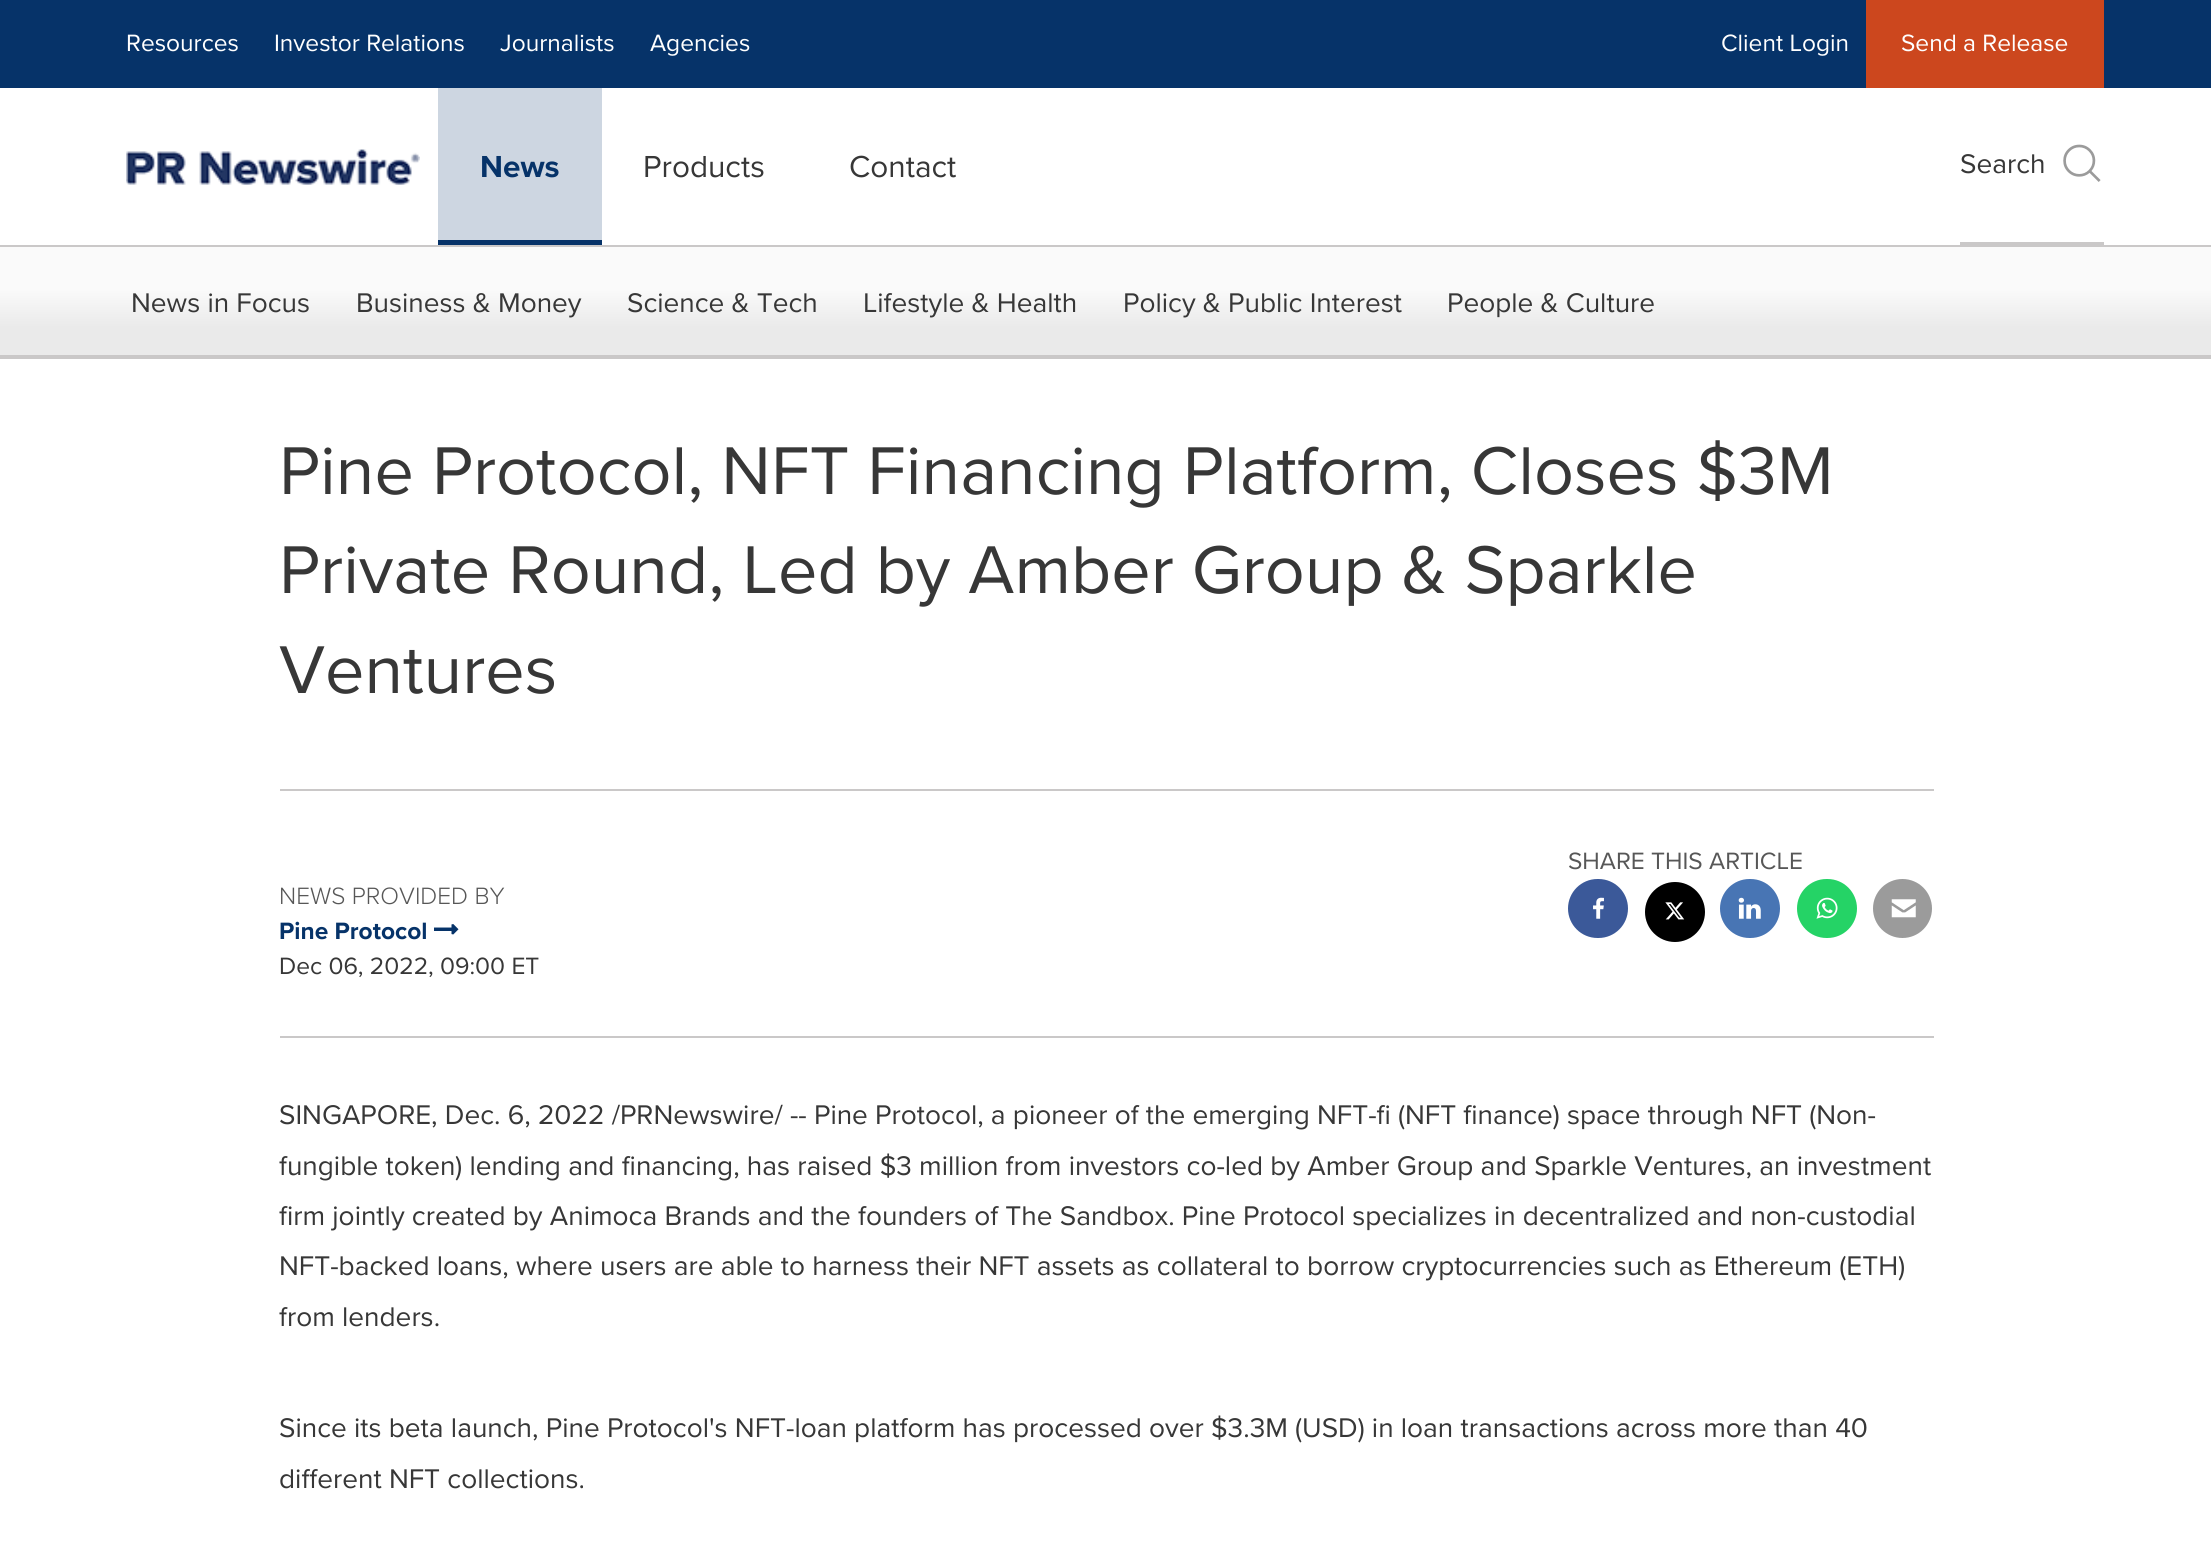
#include <cairo.h>
#include <math.h>
#include <stddef.h>

static cairo_t *ctx;

static void use_color(int r, int g, int b) {
    cairo_set_source_rgb(ctx, r / 255.0, g / 255.0, b / 255.0);
}

static void round_rect(double x, double y, double w, double h, double r) {
    cairo_new_sub_path(ctx);
    cairo_arc(ctx, x + w - r, y + h - r, r, 0, M_PI / 2);
    cairo_arc(ctx, x + r, y + h - r, r, M_PI / 2, M_PI);
    cairo_arc(ctx, x + r, y + r, r, M_PI, 1.5 * M_PI);
    cairo_arc(ctx, x + w - r, y + r, r, 1.5 * M_PI, 2 * M_PI);
    cairo_close_path(ctx);
}

static void picture(const char *path, double x, double y, double w, double h) {
    cairo_surface_t *image = cairo_image_surface_create_from_png(path);
    cairo_save(ctx);
    cairo_set_source_surface(ctx, image, x, y);
    cairo_rectangle(ctx, x, y, w, h);
    cairo_fill(ctx);
    cairo_restore(ctx);
    cairo_surface_destroy(image);
}

int main(void) {
    cairo_surface_t *surface = cairo_image_surface_create(CAIRO_FORMAT_RGB24, 2211, 1541);
    ctx = cairo_create(surface);
    cairo_font_options_t *options = cairo_font_options_create();
    cairo_font_options_set_hint_metrics(options, CAIRO_HINT_METRICS_OFF);
    cairo_font_options_set_hint_style(options, CAIRO_HINT_STYLE_NONE);
    cairo_set_font_options(ctx, options);
    cairo_set_miter_limit(ctx, 4);
    cairo_pattern_t *gradient;
    use_color(255, 255, 255);
    cairo_paint(ctx);
    use_color(6, 51, 105);
    cairo_rectangle(ctx, 0, 0, 2211, 88);
    cairo_fill(ctx);
    cairo_select_font_face(ctx, "Proxima Nova", CAIRO_FONT_SLANT_NORMAL, CAIRO_FONT_WEIGHT_NORMAL);
    cairo_set_font_size(ctx, 24.5);
    use_color(255, 255, 255);
    cairo_move_to(ctx, 126, 51);
    cairo_show_text(ctx, "Resources");
    cairo_move_to(ctx, 274, 51);
    cairo_show_text(ctx, "Investor Relations");
    cairo_move_to(ctx, 500, 51);
    cairo_show_text(ctx, "Journalists");
    cairo_move_to(ctx, 650, 51);
    cairo_show_text(ctx, "Agencies");
    cairo_move_to(ctx, 1721, 51);
    cairo_show_text(ctx, "Client Login");
    use_color(204, 71, 30);
    cairo_rectangle(ctx, 1866, 0, 238, 88);
    cairo_fill(ctx);
    use_color(255, 255, 255);
    cairo_move_to(ctx, 1901, 51);
    cairo_show_text(ctx, "Send a Release");
    use_color(202, 200, 200);
    cairo_rectangle(ctx, 0, 245, 2211, 2);
    cairo_fill(ctx);
    picture("img1.png", 126, 149, 294, 36);
    use_color(205, 214, 225);
    cairo_rectangle(ctx, 438, 88, 164, 152);
    cairo_fill(ctx);
    use_color(6, 51, 105);
    cairo_rectangle(ctx, 438, 240, 164, 5);
    cairo_fill(ctx);
    cairo_select_font_face(ctx, "Proxima Nova", CAIRO_FONT_SLANT_NORMAL, CAIRO_FONT_WEIGHT_BOLD);
    cairo_set_font_size(ctx, 31.5);
    cairo_move_to(ctx, 480, 177);
    cairo_show_text(ctx, "News");
    cairo_select_font_face(ctx, "Proxima Nova", CAIRO_FONT_SLANT_NORMAL, CAIRO_FONT_WEIGHT_NORMAL);
    use_color(55, 55, 55);
    cairo_move_to(ctx, 643, 177);
    cairo_show_text(ctx, "Products");
    cairo_move_to(ctx, 849, 177);
    cairo_show_text(ctx, "Contact");
    use_color(202, 200, 200);
    cairo_rectangle(ctx, 1960, 242, 144, 3);
    cairo_fill(ctx);
    cairo_set_font_size(ctx, 28);
    use_color(55, 55, 55);
    cairo_move_to(ctx, 1960, 173);
    cairo_show_text(ctx, "Search");
    picture("img2.png", 2063, 144, 38, 38);
    gradient = cairo_pattern_create_linear(1106, 247, 1106, 355);
    cairo_pattern_add_color_stop_rgba(gradient, 0.4, 0.98, 0.98, 0.98, 1);
    cairo_pattern_add_color_stop_rgba(gradient, 0.74, 0.918, 0.918, 0.918, 1);
    cairo_set_source(ctx, gradient);
    cairo_pattern_destroy(gradient);
    cairo_rectangle(ctx, 0, 247, 2211, 108);
    cairo_fill(ctx);
    use_color(202, 200, 200);
    cairo_rectangle(ctx, 0, 355, 2211, 4);
    cairo_fill(ctx);
    use_color(55, 55, 55);
    cairo_move_to(ctx, 131, 312);
    cairo_show_text(ctx, "News in Focus");
    cairo_move_to(ctx, 356, 312);
    cairo_show_text(ctx, "Business & Money");
    cairo_move_to(ctx, 627, 312);
    cairo_show_text(ctx, "Science & Tech");
    cairo_move_to(ctx, 863, 312);
    cairo_show_text(ctx, "Lifestyle & Health");
    cairo_move_to(ctx, 1123, 312);
    cairo_show_text(ctx, "Policy & Public Interest");
    cairo_move_to(ctx, 1447, 312);
    cairo_show_text(ctx, "People & Culture");
    cairo_set_font_size(ctx, 70);
    cairo_move_to(ctx, 279, 494);
    cairo_show_text(ctx, "Pine Protocol, NFT Financing Platform, Closes $3M");
    cairo_move_to(ctx, 279, 593);
    cairo_show_text(ctx, "Private Round, Led by Amber Group & Sparkle");
    cairo_move_to(ctx, 279, 693);
    cairo_show_text(ctx, "Ventures");
    use_color(202, 200, 200);
    cairo_rectangle(ctx, 280, 789, 1654, 2);
    cairo_fill(ctx);
    cairo_set_font_size(ctx, 24.5);
    use_color(87, 87, 87);
    cairo_move_to(ctx, 1568, 869);
    cairo_show_text(ctx, "SHARE THIS ARTICLE");
    use_color(59, 89, 153);
    round_rect(1568, 879, 60, 59, 29.5);
    cairo_fill(ctx);
    picture("img3.png", 1593, 897, 11, 22);
    use_color(0, 0, 0);
    cairo_arc(ctx, 1675, 912, 30, 0, 2 * M_PI);
    cairo_fill(ctx);
    picture("img4.png", 1665, 902, 20, 18);
    use_color(72, 117, 180);
    round_rect(1720, 879, 60, 59, 29.5);
    cairo_fill(ctx);
    picture("img5.png", 1738, 897, 23, 22);
    use_color(37, 211, 102);
    round_rect(1797, 879, 60, 59, 29.5);
    cairo_fill(ctx);
    picture("img6.png", 1816, 897, 22, 22);
    use_color(155, 155, 155);
    cairo_arc(ctx, 1902.5, 908.5, 29.5, 0, 2 * M_PI);
    cairo_fill(ctx);
    picture("img7.png", 1891, 899, 25, 19);
    cairo_select_font_face(ctx, "Proxima Nova Light", CAIRO_FONT_SLANT_NORMAL, CAIRO_FONT_WEIGHT_NORMAL);
    use_color(87, 87, 87);
    cairo_move_to(ctx, 279, 904);
    cairo_show_text(ctx, "NEWS PROVIDED BY");
    cairo_select_font_face(ctx, "Proxima Nova", CAIRO_FONT_SLANT_NORMAL, CAIRO_FONT_WEIGHT_BOLD);
    use_color(6, 51, 105);
    cairo_move_to(ctx, 279, 939);
    cairo_show_text(ctx, "Pine Protocol");
    picture("img8.png", 434, 924, 25, 11);
    cairo_select_font_face(ctx, "Proxima Nova", CAIRO_FONT_SLANT_NORMAL, CAIRO_FONT_WEIGHT_NORMAL);
    use_color(55, 55, 55);
    cairo_move_to(ctx, 279, 974);
    cairo_show_text(ctx, "Dec 06, 2022, 09:00 ET");
    use_color(202, 200, 200);
    cairo_rectangle(ctx, 280, 1036, 1654, 2);
    cairo_fill(ctx);
    cairo_set_font_size(ctx, 28);
    use_color(55, 55, 55);
    cairo_move_to(ctx, 279, 1124);
    cairo_show_text(ctx, "SINGAPORE, Dec. 6, 2022 /PRNewswire/ -- Pine Protocol, a pioneer of the emerging NFT-fi (NFT finance) space through NFT (Non-");
    cairo_move_to(ctx, 279, 1175);
    cairo_show_text(ctx, "fungible token) lending and financing, has raised $3 million from investors co-led by Amber Group and Sparkle Ventures, an investment");
    cairo_move_to(ctx, 279, 1225);
    cairo_show_text(ctx, "firm jointly created by Animoca Brands and the founders of The Sandbox. Pine Protocol specializes in decentralized and non-custodial");
    cairo_move_to(ctx, 279, 1275);
    cairo_show_text(ctx, "NFT-backed loans, where users are able to harness their NFT assets as collateral to borrow cryptocurrencies such as Ethereum (ETH)");
    cairo_move_to(ctx, 279, 1326);
    cairo_show_text(ctx, "from lenders.");
    cairo_move_to(ctx, 279, 1437);
    cairo_show_text(ctx, "Since its beta launch, Pine Protocol's NFT-loan platform has processed over $3.3M (USD) in loan transactions across more than 40");
    cairo_move_to(ctx, 279, 1488);
    cairo_show_text(ctx, "different NFT collections.");
    cairo_surface_write_to_png(surface, "result.png");
    cairo_font_options_destroy(options);
    cairo_destroy(ctx);
    cairo_surface_destroy(surface);
    return 0;
}
